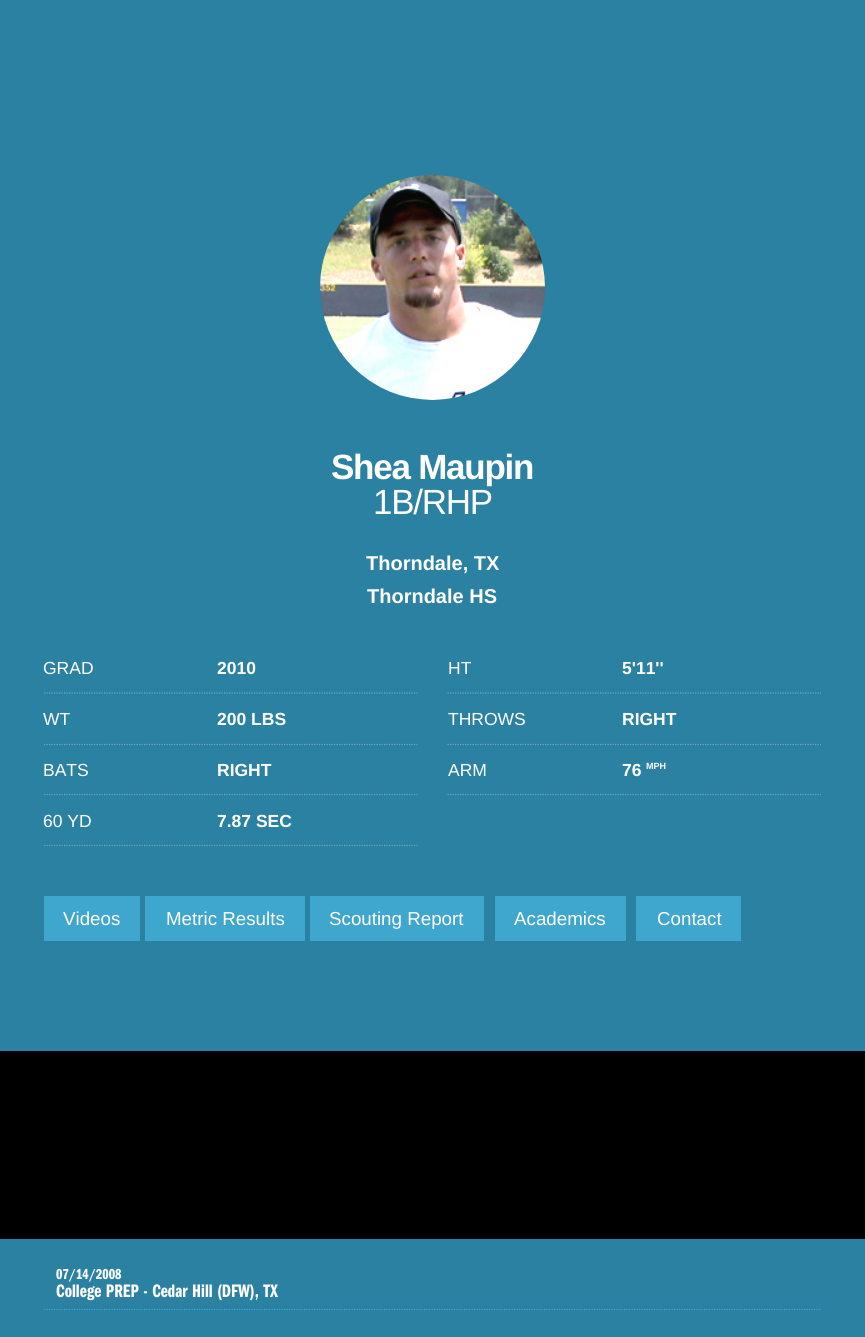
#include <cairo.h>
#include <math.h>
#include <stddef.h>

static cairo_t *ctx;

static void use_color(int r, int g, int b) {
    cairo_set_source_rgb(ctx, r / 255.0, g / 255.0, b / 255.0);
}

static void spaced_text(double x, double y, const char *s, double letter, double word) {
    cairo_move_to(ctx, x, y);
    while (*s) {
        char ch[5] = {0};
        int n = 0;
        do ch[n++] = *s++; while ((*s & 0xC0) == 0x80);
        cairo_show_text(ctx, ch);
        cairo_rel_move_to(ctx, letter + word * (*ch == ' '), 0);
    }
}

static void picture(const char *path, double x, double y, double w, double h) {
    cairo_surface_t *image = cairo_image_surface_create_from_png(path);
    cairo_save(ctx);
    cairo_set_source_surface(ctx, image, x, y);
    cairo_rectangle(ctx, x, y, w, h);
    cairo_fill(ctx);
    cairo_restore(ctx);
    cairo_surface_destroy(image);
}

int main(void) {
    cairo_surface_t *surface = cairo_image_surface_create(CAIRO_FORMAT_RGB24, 865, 1337);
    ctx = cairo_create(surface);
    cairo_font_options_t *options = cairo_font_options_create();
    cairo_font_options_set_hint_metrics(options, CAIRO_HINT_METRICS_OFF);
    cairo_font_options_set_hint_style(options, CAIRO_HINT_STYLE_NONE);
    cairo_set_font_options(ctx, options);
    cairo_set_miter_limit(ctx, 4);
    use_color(42, 129, 161);
    cairo_paint(ctx);
    picture("img1.png", 320, 175, 225, 225);
    cairo_select_font_face(ctx, "Liberation Sans", CAIRO_FONT_SLANT_NORMAL, CAIRO_FONT_WEIGHT_BOLD);
    cairo_set_font_size(ctx, 35);
    use_color(255, 255, 255);
    spaced_text(331, 479, "Shea Maupin", -1.25, 0);
    cairo_select_font_face(ctx, "Liberation Sans", CAIRO_FONT_SLANT_NORMAL, CAIRO_FONT_WEIGHT_NORMAL);
    spaced_text(373, 514, "1B/RHP", -1.25, 0);
    cairo_select_font_face(ctx, "Liberation Sans", CAIRO_FONT_SLANT_NORMAL, CAIRO_FONT_WEIGHT_BOLD);
    cairo_set_font_size(ctx, 20);
    cairo_move_to(ctx, 366, 570);
    cairo_show_text(ctx, "Thorndale, TX");
    cairo_move_to(ctx, 367, 603);
    cairo_show_text(ctx, "Thorndale HS");
    cairo_new_path(ctx);
    cairo_move_to(ctx, 44, 693);
    cairo_line_to(ctx, 417.5, 693);
    use_color(106, 167, 189);
    cairo_set_line_width(ctx, 1.2);
    cairo_set_dash(ctx, (double[]){1.25, 1.25}, 2, 0);
    cairo_stroke(ctx);
    cairo_select_font_face(ctx, "Liberation Sans", CAIRO_FONT_SLANT_NORMAL, CAIRO_FONT_WEIGHT_NORMAL);
    cairo_set_font_size(ctx, 17.5);
    use_color(255, 255, 255);
    cairo_move_to(ctx, 43, 674);
    cairo_show_text(ctx, "GRAD");
    cairo_select_font_face(ctx, "Liberation Sans", CAIRO_FONT_SLANT_NORMAL, CAIRO_FONT_WEIGHT_BOLD);
    cairo_move_to(ctx, 217, 674);
    cairo_show_text(ctx, "2010");
    cairo_new_path(ctx);
    cairo_move_to(ctx, 447.5, 693);
    cairo_line_to(ctx, 821, 693);
    use_color(106, 167, 189);
    cairo_stroke(ctx);
    cairo_select_font_face(ctx, "Liberation Sans", CAIRO_FONT_SLANT_NORMAL, CAIRO_FONT_WEIGHT_NORMAL);
    use_color(255, 255, 255);
    cairo_move_to(ctx, 448, 674);
    cairo_show_text(ctx, "HT");
    cairo_select_font_face(ctx, "Liberation Sans", CAIRO_FONT_SLANT_NORMAL, CAIRO_FONT_WEIGHT_BOLD);
    cairo_move_to(ctx, 622, 674);
    cairo_show_text(ctx, "5'11''");
    cairo_new_path(ctx);
    cairo_move_to(ctx, 44, 744.5);
    cairo_line_to(ctx, 417.5, 744.5);
    use_color(106, 167, 189);
    cairo_stroke(ctx);
    cairo_select_font_face(ctx, "Liberation Sans", CAIRO_FONT_SLANT_NORMAL, CAIRO_FONT_WEIGHT_NORMAL);
    use_color(255, 255, 255);
    cairo_move_to(ctx, 43, 725);
    cairo_show_text(ctx, "WT");
    cairo_select_font_face(ctx, "Liberation Sans", CAIRO_FONT_SLANT_NORMAL, CAIRO_FONT_WEIGHT_BOLD);
    cairo_move_to(ctx, 217, 725);
    cairo_show_text(ctx, "200 LBS");
    cairo_new_path(ctx);
    cairo_move_to(ctx, 447.5, 744.5);
    cairo_line_to(ctx, 821, 744.5);
    use_color(106, 167, 189);
    cairo_stroke(ctx);
    cairo_select_font_face(ctx, "Liberation Sans", CAIRO_FONT_SLANT_NORMAL, CAIRO_FONT_WEIGHT_NORMAL);
    use_color(255, 255, 255);
    cairo_move_to(ctx, 448, 725);
    cairo_show_text(ctx, "THROWS");
    cairo_select_font_face(ctx, "Liberation Sans", CAIRO_FONT_SLANT_NORMAL, CAIRO_FONT_WEIGHT_BOLD);
    cairo_move_to(ctx, 622, 725);
    cairo_show_text(ctx, "RIGHT");
    cairo_new_path(ctx);
    cairo_move_to(ctx, 44, 794.5);
    cairo_line_to(ctx, 417.5, 794.5);
    use_color(106, 167, 189);
    cairo_stroke(ctx);
    cairo_select_font_face(ctx, "Liberation Sans", CAIRO_FONT_SLANT_NORMAL, CAIRO_FONT_WEIGHT_NORMAL);
    use_color(255, 255, 255);
    cairo_move_to(ctx, 43, 776);
    cairo_show_text(ctx, "BATS");
    cairo_select_font_face(ctx, "Liberation Sans", CAIRO_FONT_SLANT_NORMAL, CAIRO_FONT_WEIGHT_BOLD);
    cairo_move_to(ctx, 217, 776);
    cairo_show_text(ctx, "RIGHT");
    cairo_new_path(ctx);
    cairo_move_to(ctx, 447.5, 794.5);
    cairo_line_to(ctx, 821, 794.5);
    use_color(106, 167, 189);
    cairo_stroke(ctx);
    cairo_select_font_face(ctx, "Liberation Sans", CAIRO_FONT_SLANT_NORMAL, CAIRO_FONT_WEIGHT_NORMAL);
    use_color(255, 255, 255);
    cairo_move_to(ctx, 448, 776);
    cairo_show_text(ctx, "ARM");
    cairo_select_font_face(ctx, "Liberation Sans", CAIRO_FONT_SLANT_NORMAL, CAIRO_FONT_WEIGHT_BOLD);
    cairo_move_to(ctx, 622, 776);
    cairo_show_text(ctx, "76");
    cairo_set_font_size(ctx, 9);
    cairo_move_to(ctx, 646, 769);
    cairo_show_text(ctx, "MPH");
    cairo_new_path(ctx);
    cairo_move_to(ctx, 44, 845.5);
    cairo_line_to(ctx, 417.5, 845.5);
    use_color(106, 167, 189);
    cairo_stroke(ctx);
    cairo_select_font_face(ctx, "Liberation Sans", CAIRO_FONT_SLANT_NORMAL, CAIRO_FONT_WEIGHT_NORMAL);
    cairo_set_font_size(ctx, 17.5);
    use_color(255, 255, 255);
    cairo_move_to(ctx, 43, 827);
    cairo_show_text(ctx, "60 YD");
    cairo_select_font_face(ctx, "Liberation Sans", CAIRO_FONT_SLANT_NORMAL, CAIRO_FONT_WEIGHT_BOLD);
    cairo_move_to(ctx, 217, 827);
    cairo_show_text(ctx, "7.87 SEC");
    use_color(63, 166, 205);
    cairo_rectangle(ctx, 44, 896, 96, 45);
    cairo_fill(ctx);
    cairo_select_font_face(ctx, "Liberation Sans", CAIRO_FONT_SLANT_NORMAL, CAIRO_FONT_WEIGHT_NORMAL);
    cairo_set_font_size(ctx, 18.75);
    use_color(255, 255, 255);
    cairo_move_to(ctx, 63, 925);
    cairo_show_text(ctx, "Videos");
    use_color(63, 166, 205);
    cairo_rectangle(ctx, 145, 896, 160, 45);
    cairo_fill(ctx);
    use_color(255, 255, 255);
    cairo_move_to(ctx, 166, 925);
    cairo_show_text(ctx, "Metric Results");
    use_color(63, 166, 205);
    cairo_rectangle(ctx, 310, 896, 174, 45);
    cairo_fill(ctx);
    use_color(255, 255, 255);
    cairo_move_to(ctx, 329, 925);
    cairo_show_text(ctx, "Scouting Report");
    use_color(63, 166, 205);
    cairo_rectangle(ctx, 495, 896, 131, 45);
    cairo_fill(ctx);
    use_color(255, 255, 255);
    cairo_move_to(ctx, 514, 925);
    cairo_show_text(ctx, "Academics");
    use_color(63, 166, 205);
    cairo_rectangle(ctx, 636, 896, 105, 45);
    cairo_fill(ctx);
    use_color(255, 255, 255);
    cairo_move_to(ctx, 657, 925);
    cairo_show_text(ctx, "Contact");
    use_color(0, 0, 0);
    cairo_rectangle(ctx, 0, 1051, 865, 188);
    cairo_fill(ctx);
    cairo_new_path(ctx);
    cairo_move_to(ctx, 44, 1309.5);
    cairo_line_to(ctx, 821, 1309.5);
    use_color(63, 166, 205);
    cairo_stroke(ctx);
    cairo_select_font_face(ctx, "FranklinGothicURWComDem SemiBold", CAIRO_FONT_SLANT_NORMAL, CAIRO_FONT_WEIGHT_NORMAL);
    cairo_set_font_size(ctx, 15);
    use_color(255, 255, 255);
    cairo_move_to(ctx, 56, 1279);
    cairo_show_text(ctx, "07/14/2008");
    cairo_set_font_size(ctx, 18.75);
    cairo_move_to(ctx, 56, 1297);
    cairo_show_text(ctx, "College PREP - Cedar Hill (DFW), TX");
    cairo_surface_write_to_png(surface, "result.png");
    cairo_font_options_destroy(options);
    cairo_destroy(ctx);
    cairo_surface_destroy(surface);
    return 0;
}
